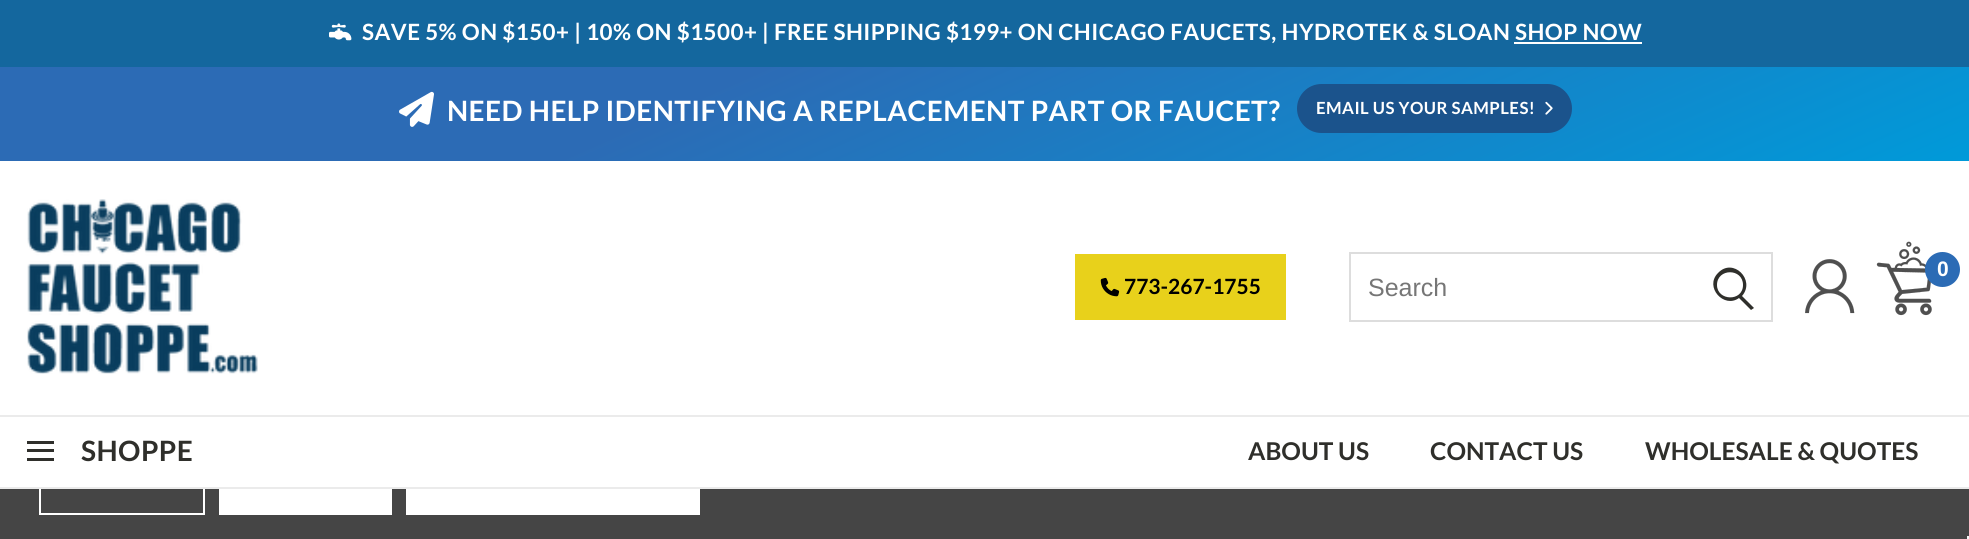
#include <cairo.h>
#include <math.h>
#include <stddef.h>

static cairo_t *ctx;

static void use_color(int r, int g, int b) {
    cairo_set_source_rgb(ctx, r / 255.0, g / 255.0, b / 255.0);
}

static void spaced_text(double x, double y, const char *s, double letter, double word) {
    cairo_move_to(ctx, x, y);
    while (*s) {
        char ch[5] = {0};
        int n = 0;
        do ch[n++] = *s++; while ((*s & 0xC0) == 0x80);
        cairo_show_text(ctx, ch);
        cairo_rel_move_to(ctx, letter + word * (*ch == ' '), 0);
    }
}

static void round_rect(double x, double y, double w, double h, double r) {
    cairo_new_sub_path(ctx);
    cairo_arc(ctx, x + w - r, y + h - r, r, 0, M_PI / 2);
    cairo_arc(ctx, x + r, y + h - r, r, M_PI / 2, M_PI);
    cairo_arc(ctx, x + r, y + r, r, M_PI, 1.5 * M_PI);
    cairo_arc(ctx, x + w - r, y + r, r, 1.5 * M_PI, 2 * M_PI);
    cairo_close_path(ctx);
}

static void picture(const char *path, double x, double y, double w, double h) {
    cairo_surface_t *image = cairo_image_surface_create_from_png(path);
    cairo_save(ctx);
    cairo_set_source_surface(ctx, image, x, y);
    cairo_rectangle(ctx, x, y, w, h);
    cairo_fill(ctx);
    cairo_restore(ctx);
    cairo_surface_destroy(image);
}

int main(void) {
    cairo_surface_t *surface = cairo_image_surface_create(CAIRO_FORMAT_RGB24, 1969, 539);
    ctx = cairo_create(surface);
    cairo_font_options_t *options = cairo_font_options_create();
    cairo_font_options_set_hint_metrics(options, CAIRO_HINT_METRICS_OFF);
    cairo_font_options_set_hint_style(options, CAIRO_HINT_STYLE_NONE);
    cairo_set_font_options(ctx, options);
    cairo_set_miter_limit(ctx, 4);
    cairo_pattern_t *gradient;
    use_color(69, 69, 69);
    cairo_paint(ctx);
    cairo_rectangle(ctx, 40, 453, 164, 61);
    use_color(255, 255, 255);
    cairo_stroke(ctx);
    cairo_rectangle(ctx, 0, 161, 1969, 326);
    cairo_fill(ctx);
    use_color(20, 103, 158);
    cairo_rectangle(ctx, 0, 0, 1969, 67);
    cairo_fill(ctx);
    picture("img1.png", 329, 23, 23, 18);
    cairo_select_font_face(ctx, "Lato", CAIRO_FONT_SLANT_NORMAL, CAIRO_FONT_WEIGHT_BOLD);
    cairo_set_font_size(ctx, 22.4);
    use_color(255, 255, 255);
    spaced_text(362, 40, "SAVE 5% ON $150+ | 10% ON $1500+ | FREE SHIPPING $199+ ON CHICAGO FAUCETS, HYDROTEK & SLOAN SHOP NOW", 0.44, 0);
    cairo_rectangle(ctx, 1514, 42, 128, 2);
    cairo_fill(ctx);
    gradient = cairo_pattern_create_linear(805, -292, 1166, 519);
    cairo_pattern_add_color_stop_rgba(gradient, 0, 0.173, 0.42, 0.71, 1);
    cairo_pattern_add_color_stop_rgba(gradient, 0.35, 0.173, 0.42, 0.71, 1);
    cairo_pattern_add_color_stop_rgba(gradient, 1, 0, 0.604, 0.851, 1);
    cairo_set_source(ctx, gradient);
    cairo_pattern_destroy(gradient);
    cairo_rectangle(ctx, 0, 67, 1969, 94);
    cairo_fill(ctx);
    picture("img2.png", 399, 91, 35, 36);
    cairo_set_font_size(ctx, 28);
    use_color(255, 255, 255);
    spaced_text(447, 121, "NEED HELP IDENTIFYING A REPLACEMENT PART OR FAUCET?", 0.44, 0);
    use_color(27, 83, 140);
    round_rect(1297, 84, 275, 49, 24.5);
    cairo_fill(ctx);
    cairo_set_font_size(ctx, 16.75);
    use_color(255, 255, 255);
    spaced_text(1316, 114, "EMAIL US YOUR SAMPLES!", 0.44, 0);
    picture("img3.png", 1545, 101, 8, 14);
    picture("img4.png", 27, 199, 231, 175);
    picture("img5.png", 1805, 259, 50, 55);
    picture("img6.png", 1876, 241, 56, 75);
    use_color(43, 107, 181);
    cairo_arc(ctx, 1942.5, 269.5, 17.5, 0, 2 * M_PI);
    cairo_fill(ctx);
    cairo_select_font_face(ctx, "Liberation Sans", CAIRO_FONT_SLANT_NORMAL, CAIRO_FONT_WEIGHT_BOLD);
    cairo_set_font_size(ctx, 21);
    use_color(255, 255, 255);
    cairo_move_to(ctx, 1937, 276);
    cairo_show_text(ctx, "0");
    use_color(232, 209, 27);
    cairo_rectangle(ctx, 1075, 254, 211, 66);
    cairo_fill(ctx);
    picture("img7.png", 1100, 277, 20, 20);
    cairo_select_font_face(ctx, "Lato", CAIRO_FONT_SLANT_NORMAL, CAIRO_FONT_WEIGHT_BOLD);
    use_color(0, 0, 0);
    cairo_move_to(ctx, 1124, 294);
    cairo_show_text(ctx, "773-267-1755");
    cairo_rectangle(ctx, 1350, 253, 422, 68);
    use_color(221, 221, 221);
    cairo_stroke(ctx);
    cairo_select_font_face(ctx, "Liberation Sans", CAIRO_FONT_SLANT_NORMAL, CAIRO_FONT_WEIGHT_NORMAL);
    cairo_set_font_size(ctx, 25);
    use_color(118, 118, 118);
    cairo_move_to(ctx, 1368, 296);
    cairo_show_text(ctx, "Search");
    use_color(47, 47, 43);
    cairo_new_path(ctx);
    cairo_move_to(ctx, 1754, 308);
    cairo_line_to(ctx, 1742, 296);
    cairo_curve_to(ctx, 1756, 280, 1733, 257, 1718, 273);
    cairo_curve_to(ctx, 1704, 287, 1724, 309, 1739, 298);
    cairo_line_to(ctx, 1751, 310);
    cairo_close_path(ctx);
    cairo_move_to(ctx, 1717, 285);
    cairo_curve_to(ctx, 1717, 268, 1743, 268, 1743, 285);
    cairo_curve_to(ctx, 1743, 302, 1717, 301, 1717, 285);
    cairo_close_path(ctx);
    cairo_fill(ctx);
    use_color(235, 235, 235);
    cairo_rectangle(ctx, 0, 415, 1969, 2);
    cairo_fill(ctx);
    cairo_rectangle(ctx, 0, 487, 1969, 2);
    cairo_fill(ctx);
    use_color(47, 47, 43);
    cairo_rectangle(ctx, 27, 441, 27, 3);
    cairo_fill(ctx);
    cairo_rectangle(ctx, 27, 449, 27, 3);
    cairo_fill(ctx);
    cairo_rectangle(ctx, 27, 458, 27, 3);
    cairo_fill(ctx);
    cairo_select_font_face(ctx, "Lato", CAIRO_FONT_SLANT_NORMAL, CAIRO_FONT_WEIGHT_BOLD);
    cairo_set_font_size(ctx, 28);
    spaced_text(81, 461, "SHOPPE", 0.44, 0);
    cairo_set_font_size(ctx, 24.5);
    cairo_move_to(ctx, 1248, 460);
    cairo_show_text(ctx, "ABOUT US");
    cairo_move_to(ctx, 1430, 460);
    cairo_show_text(ctx, "CONTACT US");
    cairo_move_to(ctx, 1645, 460);
    cairo_show_text(ctx, "WHOLESALE & QUOTES");
    use_color(255, 255, 255);
    cairo_rectangle(ctx, 219, 489, 173, 26);
    cairo_fill(ctx);
    cairo_rectangle(ctx, 406, 489, 294, 26);
    cairo_fill(ctx);
    use_color(245, 245, 245);
    cairo_rectangle(ctx, 1967, 536, 2, 3);
    cairo_fill(ctx);
    cairo_surface_write_to_png(surface, "result.png");
    cairo_font_options_destroy(options);
    cairo_destroy(ctx);
    cairo_surface_destroy(surface);
    return 0;
}
